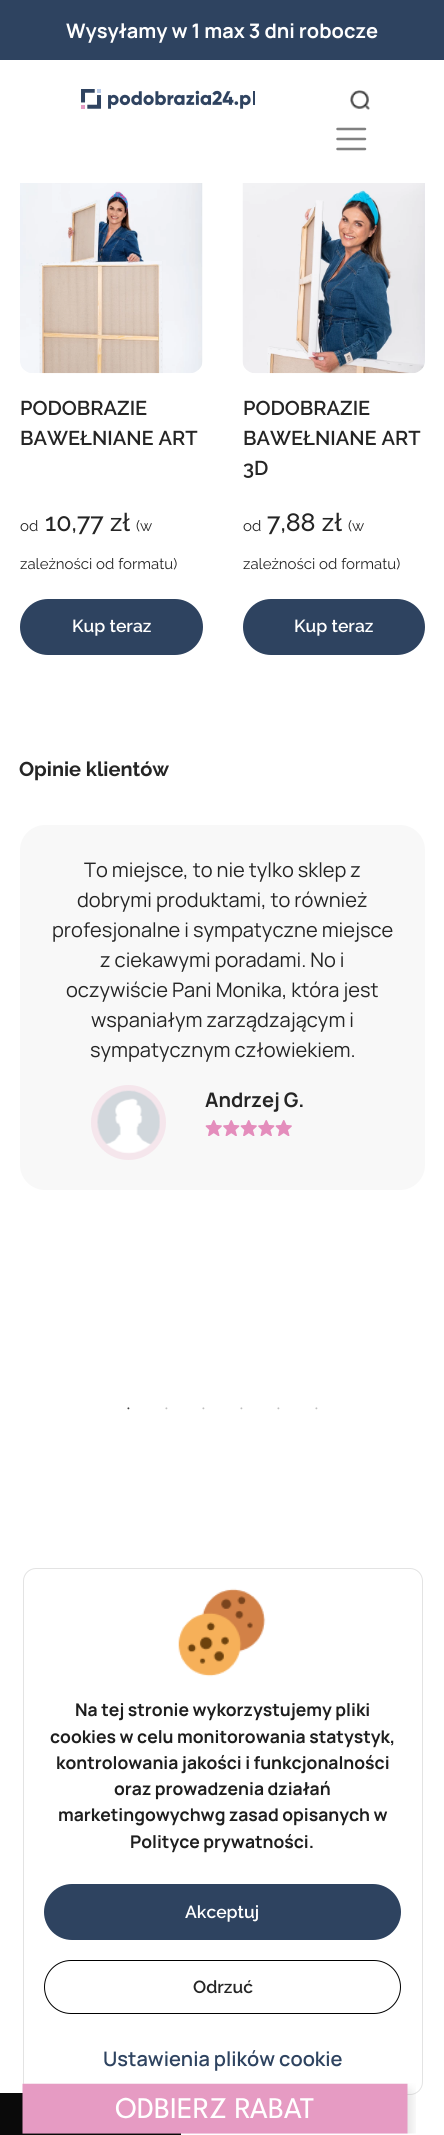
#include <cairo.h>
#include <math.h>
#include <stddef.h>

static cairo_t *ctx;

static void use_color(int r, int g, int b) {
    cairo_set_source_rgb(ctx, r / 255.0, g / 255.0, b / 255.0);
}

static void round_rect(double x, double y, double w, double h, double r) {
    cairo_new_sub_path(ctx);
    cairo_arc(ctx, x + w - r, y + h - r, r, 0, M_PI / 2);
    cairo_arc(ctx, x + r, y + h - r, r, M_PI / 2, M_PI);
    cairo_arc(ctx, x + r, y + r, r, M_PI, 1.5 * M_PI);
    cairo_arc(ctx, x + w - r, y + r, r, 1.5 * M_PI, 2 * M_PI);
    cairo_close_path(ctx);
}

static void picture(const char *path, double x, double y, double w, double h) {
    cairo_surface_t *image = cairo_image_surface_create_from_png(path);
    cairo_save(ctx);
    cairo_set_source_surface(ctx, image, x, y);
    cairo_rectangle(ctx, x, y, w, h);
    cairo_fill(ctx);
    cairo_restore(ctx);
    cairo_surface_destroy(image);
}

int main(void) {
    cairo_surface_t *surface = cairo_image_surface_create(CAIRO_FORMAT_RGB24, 444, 2135);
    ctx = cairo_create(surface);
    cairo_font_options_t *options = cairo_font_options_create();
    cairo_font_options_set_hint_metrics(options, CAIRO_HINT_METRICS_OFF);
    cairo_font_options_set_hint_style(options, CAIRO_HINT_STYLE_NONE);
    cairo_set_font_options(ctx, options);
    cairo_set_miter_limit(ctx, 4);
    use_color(255, 255, 255);
    cairo_paint(ctx);
    use_color(46, 67, 96);
    cairo_rectangle(ctx, 0, 0, 444, 60);
    cairo_fill(ctx);
    cairo_select_font_face(ctx, "Manrope", CAIRO_FONT_SLANT_NORMAL, CAIRO_FONT_WEIGHT_BOLD);
    cairo_set_font_size(ctx, 20);
    use_color(255, 255, 255);
    cairo_move_to(ctx, 66, 38);
    cairo_show_text(ctx, "Wysyłamy w 1 max 3 dni robocze");
    picture("img1.png", 81, 89, 174, 20);
    picture("img2.png", 350, 90, 20, 20);
    cairo_new_path(ctx);
    cairo_move_to(ctx, 337.5, 129);
    cairo_line_to(ctx, 365, 129);
    cairo_move_to(ctx, 337.5, 139);
    cairo_line_to(ctx, 365, 139);
    cairo_move_to(ctx, 337.5, 149);
    cairo_line_to(ctx, 365, 149);
    use_color(128, 128, 128);
    cairo_set_line_width(ctx, 2.5);
    cairo_set_line_cap(ctx, CAIRO_LINE_CAP_ROUND);
    cairo_stroke(ctx);
    picture("img3.png", 20, 183, 183, 191);
    cairo_select_font_face(ctx, "Raleway SemiBold", CAIRO_FONT_SLANT_NORMAL, CAIRO_FONT_WEIGHT_NORMAL);
    use_color(37, 37, 37);
    cairo_move_to(ctx, 20, 415);
    cairo_show_text(ctx, "PODOBRAZIE");
    cairo_move_to(ctx, 20, 445);
    cairo_show_text(ctx, "BAWEŁNIANE ART");
    cairo_select_font_face(ctx, "Raleway", CAIRO_FONT_SLANT_NORMAL, CAIRO_FONT_WEIGHT_NORMAL);
    cairo_set_font_size(ctx, 15);
    cairo_move_to(ctx, 20, 531);
    cairo_show_text(ctx, "od");
    cairo_select_font_face(ctx, "Raleway Medium", CAIRO_FONT_SLANT_NORMAL, CAIRO_FONT_WEIGHT_NORMAL);
    cairo_set_font_size(ctx, 25);
    cairo_move_to(ctx, 45, 531);
    cairo_show_text(ctx, "10,77 zł");
    cairo_select_font_face(ctx, "Raleway", CAIRO_FONT_SLANT_NORMAL, CAIRO_FONT_WEIGHT_NORMAL);
    cairo_set_font_size(ctx, 15);
    cairo_move_to(ctx, 136, 531);
    cairo_show_text(ctx, "(w");
    cairo_move_to(ctx, 20, 569);
    cairo_show_text(ctx, "zależności od formatu)");
    use_color(46, 67, 96);
    round_rect(21.5, 600.5, 180, 53, 26.5);
    cairo_fill_preserve(ctx);
    cairo_set_line_width(ctx, 3);
    cairo_set_line_cap(ctx, CAIRO_LINE_CAP_BUTT);
    cairo_stroke(ctx);
    cairo_select_font_face(ctx, "Raleway SemiBold", CAIRO_FONT_SLANT_NORMAL, CAIRO_FONT_WEIGHT_NORMAL);
    cairo_set_font_size(ctx, 17.5);
    use_color(255, 255, 255);
    cairo_move_to(ctx, 72, 632);
    cairo_show_text(ctx, "Kup teraz");
    picture("img4.png", 242, 183, 183, 191);
    cairo_set_font_size(ctx, 20);
    use_color(37, 37, 37);
    cairo_move_to(ctx, 243, 415);
    cairo_show_text(ctx, "PODOBRAZIE");
    cairo_move_to(ctx, 243, 445);
    cairo_show_text(ctx, "BAWEŁNIANE ART");
    cairo_move_to(ctx, 243, 475);
    cairo_show_text(ctx, "3D");
    cairo_select_font_face(ctx, "Raleway", CAIRO_FONT_SLANT_NORMAL, CAIRO_FONT_WEIGHT_NORMAL);
    cairo_set_font_size(ctx, 15);
    cairo_move_to(ctx, 243, 531);
    cairo_show_text(ctx, "od");
    cairo_select_font_face(ctx, "Raleway Medium", CAIRO_FONT_SLANT_NORMAL, CAIRO_FONT_WEIGHT_NORMAL);
    cairo_set_font_size(ctx, 25);
    cairo_move_to(ctx, 267, 531);
    cairo_show_text(ctx, "7,88 zł");
    cairo_select_font_face(ctx, "Raleway", CAIRO_FONT_SLANT_NORMAL, CAIRO_FONT_WEIGHT_NORMAL);
    cairo_set_font_size(ctx, 15);
    cairo_move_to(ctx, 348, 531);
    cairo_show_text(ctx, "(w");
    cairo_move_to(ctx, 243, 569);
    cairo_show_text(ctx, "zależności od formatu)");
    use_color(46, 67, 96);
    round_rect(244.5, 600.5, 179, 53, 26.5);
    cairo_fill_preserve(ctx);
    cairo_stroke(ctx);
    cairo_select_font_face(ctx, "Raleway SemiBold", CAIRO_FONT_SLANT_NORMAL, CAIRO_FONT_WEIGHT_NORMAL);
    cairo_set_font_size(ctx, 17.5);
    use_color(255, 255, 255);
    cairo_move_to(ctx, 294, 632);
    cairo_show_text(ctx, "Kup teraz");
    cairo_select_font_face(ctx, "Raleway", CAIRO_FONT_SLANT_NORMAL, CAIRO_FONT_WEIGHT_BOLD);
    cairo_set_font_size(ctx, 20);
    use_color(37, 37, 37);
    cairo_move_to(ctx, 19, 776);
    cairo_show_text(ctx, "Opinie klientów");
    use_color(248, 248, 248);
    round_rect(20, 825, 405, 365, 25);
    cairo_fill(ctx);
    cairo_select_font_face(ctx, "Manrope", CAIRO_FONT_SLANT_NORMAL, CAIRO_FONT_WEIGHT_NORMAL);
    use_color(37, 37, 37);
    cairo_move_to(ctx, 84, 877);
    cairo_show_text(ctx, "To miejsce, to nie tylko sklep z");
    cairo_move_to(ctx, 77, 907);
    cairo_show_text(ctx, "dobrymi produktami, to również");
    cairo_move_to(ctx, 52, 937);
    cairo_show_text(ctx, "profesjonalne i sympatyczne miejsce");
    cairo_move_to(ctx, 100, 967);
    cairo_show_text(ctx, "z ciekawymi poradami. No i");
    cairo_move_to(ctx, 66, 997);
    cairo_show_text(ctx, "oczywiście Pani Monika, która jest");
    cairo_move_to(ctx, 91, 1027);
    cairo_show_text(ctx, "wspaniałym zarządzającym i");
    cairo_move_to(ctx, 90, 1057);
    cairo_show_text(ctx, "sympatycznym człowiekiem.");
    use_color(245, 230, 236);
    cairo_new_path(ctx);
    cairo_arc(ctx, 128.5, 1122.5, 37.5, 0, 2 * M_PI);
    cairo_fill(ctx);
    picture("img5.png", 97, 1090, 63, 64);
    cairo_select_font_face(ctx, "Manrope", CAIRO_FONT_SLANT_NORMAL, CAIRO_FONT_WEIGHT_BOLD);
    use_color(37, 37, 37);
    cairo_move_to(ctx, 205, 1107);
    cairo_show_text(ctx, "Andrzej G.");
    picture("img6.png", 205, 1120, 17, 16);
    picture("img7.png", 223, 1120, 17, 16);
    picture("img6.png", 240, 1120, 17, 16);
    picture("img7.png", 258, 1120, 17, 16);
    picture("img6.png", 275, 1120, 17, 16);
    cairo_select_font_face(ctx, "Liberation Serif", CAIRO_FONT_SLANT_NORMAL, CAIRO_FONT_WEIGHT_NORMAL);
    cairo_set_font_size(ctx, 8);
    use_color(64, 64, 64);
    cairo_move_to(ctx, 127, 1411);
    cairo_show_text(ctx, "•");
    use_color(191, 191, 191);
    cairo_move_to(ctx, 165, 1411);
    cairo_show_text(ctx, "•");
    cairo_move_to(ctx, 202, 1411);
    cairo_show_text(ctx, "•");
    cairo_move_to(ctx, 240, 1411);
    cairo_show_text(ctx, "•");
    cairo_move_to(ctx, 277, 1411);
    cairo_show_text(ctx, "•");
    cairo_move_to(ctx, 315, 1411);
    cairo_show_text(ctx, "•");
    use_color(10, 10, 10);
    cairo_rectangle(ctx, 0, 2093, 181, 42);
    cairo_fill(ctx);
    use_color(255, 255, 255);
    round_rect(23.5, 1568.5, 399, 526, 12.5);
    cairo_fill_preserve(ctx);
    use_color(227, 227, 227);
    cairo_set_line_width(ctx, 1);
    cairo_stroke(ctx);
    picture("img8.png", 178, 1588, 88, 89);
    cairo_select_font_face(ctx, "Manrope", CAIRO_FONT_SLANT_NORMAL, CAIRO_FONT_WEIGHT_BOLD);
    cairo_set_font_size(ctx, 17.5);
    use_color(30, 30, 30);
    cairo_move_to(ctx, 75, 1716);
    cairo_show_text(ctx, "Na tej stronie wykorzystujemy pliki");
    cairo_move_to(ctx, 50, 1743);
    cairo_show_text(ctx, "cookies w celu monitorowania statystyk,");
    cairo_move_to(ctx, 56, 1769);
    cairo_show_text(ctx, "kontrolowania jakości i funkcjonalności");
    cairo_move_to(ctx, 114, 1795);
    cairo_show_text(ctx, "oraz prowadzenia działań");
    cairo_move_to(ctx, 58, 1821);
    cairo_show_text(ctx, "marketingowychwg zasad opisanych w");
    cairo_move_to(ctx, 130, 1848);
    cairo_show_text(ctx, "Polityce prywatności.");
    use_color(255, 255, 255);
    round_rect(24, 1854, 397, 240, 13);
    cairo_fill(ctx);
    use_color(46, 67, 96);
    round_rect(45.5, 1885.5, 354, 53, 26.5);
    cairo_fill_preserve(ctx);
    cairo_set_line_width(ctx, 3);
    cairo_stroke(ctx);
    cairo_select_font_face(ctx, "Raleway SemiBold", CAIRO_FONT_SLANT_NORMAL, CAIRO_FONT_WEIGHT_NORMAL);
    use_color(255, 255, 255);
    cairo_move_to(ctx, 185, 1918);
    cairo_show_text(ctx, "Akceptuj");
    round_rect(44.5, 1960.5, 356, 53, 26.5);
    use_color(0, 0, 0);
    cairo_set_line_width(ctx, 1);
    cairo_stroke(ctx);
    use_color(37, 37, 37);
    cairo_move_to(ctx, 193, 1993);
    cairo_show_text(ctx, "Odrzuć");
    cairo_select_font_face(ctx, "Manrope SemiBold", CAIRO_FONT_SLANT_NORMAL, CAIRO_FONT_WEIGHT_NORMAL);
    cairo_set_font_size(ctx, 20);
    use_color(46, 67, 96);
    cairo_move_to(ctx, 103, 2066);
    cairo_show_text(ctx, "Ustawienia plików cookie");
    picture("img9.png", 22, 2083, 394, 51);
    cairo_surface_write_to_png(surface, "result.png");
    cairo_font_options_destroy(options);
    cairo_destroy(ctx);
    cairo_surface_destroy(surface);
    return 0;
}
